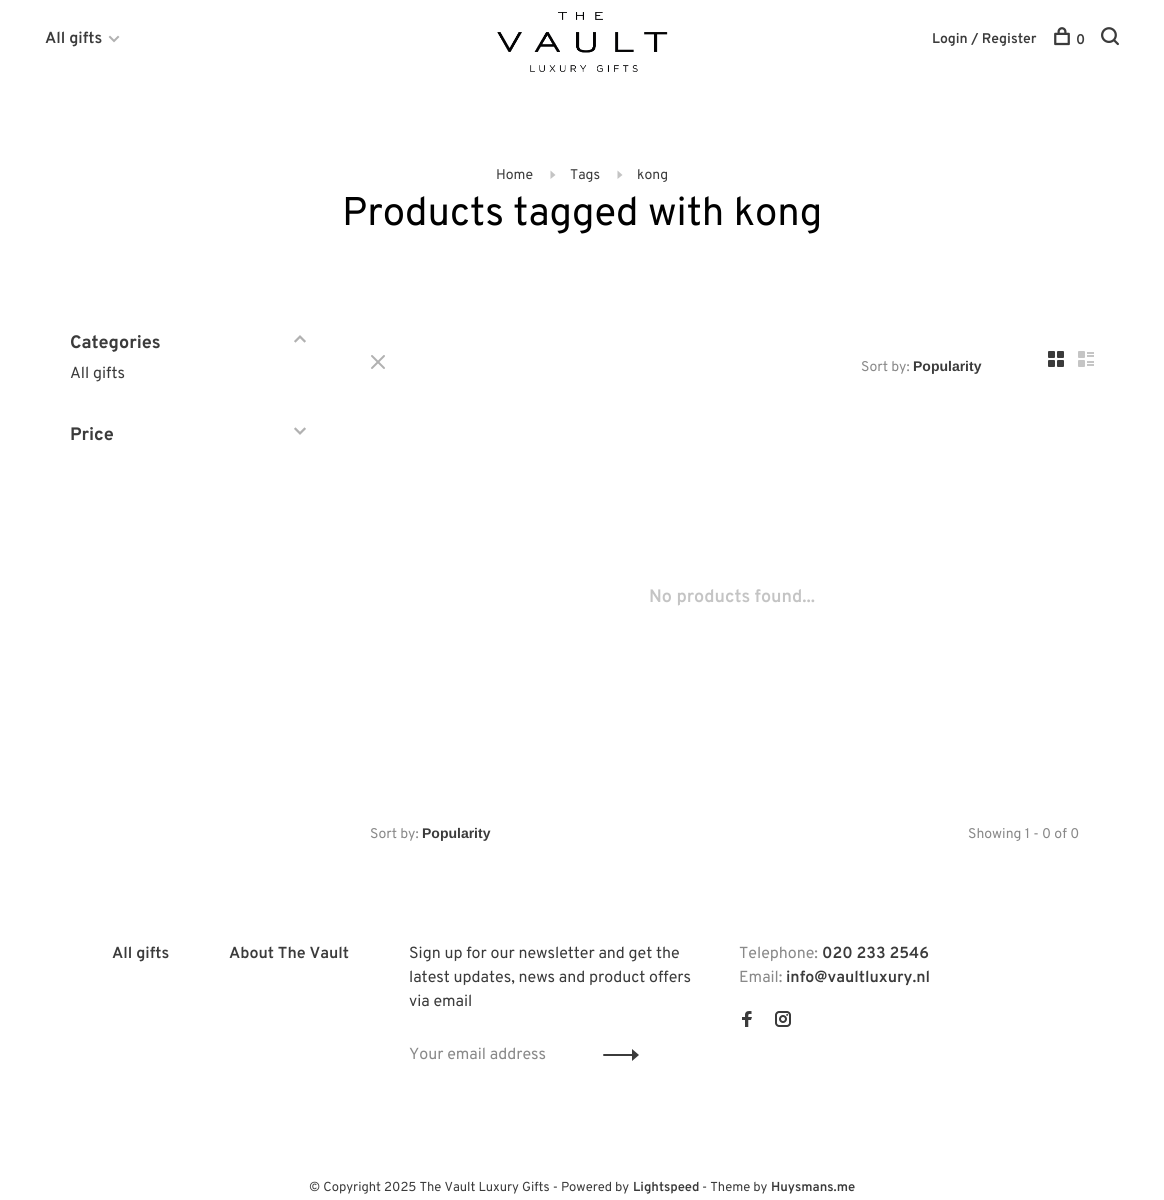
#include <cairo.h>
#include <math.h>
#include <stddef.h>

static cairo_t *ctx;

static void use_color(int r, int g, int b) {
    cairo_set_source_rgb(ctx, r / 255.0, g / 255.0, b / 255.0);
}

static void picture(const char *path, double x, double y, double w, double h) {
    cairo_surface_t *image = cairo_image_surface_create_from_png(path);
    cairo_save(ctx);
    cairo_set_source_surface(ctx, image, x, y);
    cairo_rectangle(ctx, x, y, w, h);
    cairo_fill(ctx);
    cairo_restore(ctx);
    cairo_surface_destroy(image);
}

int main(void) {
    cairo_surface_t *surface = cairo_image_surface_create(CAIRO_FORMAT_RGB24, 1164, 1200);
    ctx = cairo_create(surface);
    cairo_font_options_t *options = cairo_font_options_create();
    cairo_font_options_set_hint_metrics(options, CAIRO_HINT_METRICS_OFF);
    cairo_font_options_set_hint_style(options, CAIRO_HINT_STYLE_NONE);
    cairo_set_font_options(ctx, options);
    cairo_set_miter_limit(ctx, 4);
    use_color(255, 255, 255);
    cairo_paint(ctx);
    cairo_select_font_face(ctx, "Overpass SemiBold", CAIRO_FONT_SLANT_NORMAL, CAIRO_FONT_WEIGHT_NORMAL);
    cairo_set_font_size(ctx, 16);
    use_color(59, 59, 59);
    cairo_move_to(ctx, 45, 43);
    cairo_show_text(ctx, "All gifts");
    picture("img1.png", 108, 35, 12, 8);
    picture("img2.png", 497, 12, 171, 60);
    cairo_set_font_size(ctx, 14);
    cairo_move_to(ctx, 932, 43);
    cairo_show_text(ctx, "Login / Register");
    picture("img3.png", 1054, 27, 16, 19);
    cairo_move_to(ctx, 1076, 44);
    cairo_show_text(ctx, "0");
    picture("img4.png", 1101, 27, 18, 19);
    cairo_select_font_face(ctx, "Overpass", CAIRO_FONT_SLANT_NORMAL, CAIRO_FONT_WEIGHT_NORMAL);
    cairo_move_to(ctx, 496, 179);
    cairo_show_text(ctx, "Home");
    use_color(196, 196, 196);
    cairo_new_path(ctx);
    cairo_move_to(ctx, 550.5, 179);
    cairo_line_to(ctx, 555.5, 175);
    cairo_line_to(ctx, 550.5, 170.5);
    cairo_close_path(ctx);
    cairo_fill(ctx);
    use_color(59, 59, 59);
    cairo_move_to(ctx, 570, 179);
    cairo_show_text(ctx, "Tags");
    use_color(196, 196, 196);
    cairo_new_path(ctx);
    cairo_move_to(ctx, 617.5, 179);
    cairo_line_to(ctx, 622.5, 175);
    cairo_line_to(ctx, 617.5, 170.5);
    cairo_close_path(ctx);
    cairo_fill(ctx);
    use_color(59, 59, 59);
    cairo_move_to(ctx, 637, 179);
    cairo_show_text(ctx, "kong");
    cairo_set_font_size(ctx, 40);
    use_color(0, 0, 0);
    cairo_move_to(ctx, 342, 225);
    cairo_show_text(ctx, "Products tagged with kong");
    cairo_select_font_face(ctx, "Overpass", CAIRO_FONT_SLANT_NORMAL, CAIRO_FONT_WEIGHT_BOLD);
    cairo_set_font_size(ctx, 18);
    use_color(59, 59, 59);
    cairo_move_to(ctx, 70, 348);
    cairo_show_text(ctx, "Categories");
    picture("img5.png", 294, 335, 12, 8);
    cairo_select_font_face(ctx, "Overpass", CAIRO_FONT_SLANT_NORMAL, CAIRO_FONT_WEIGHT_NORMAL);
    cairo_set_font_size(ctx, 16);
    cairo_move_to(ctx, 70, 378);
    cairo_show_text(ctx, "All gifts");
    cairo_select_font_face(ctx, "Overpass", CAIRO_FONT_SLANT_NORMAL, CAIRO_FONT_WEIGHT_BOLD);
    cairo_set_font_size(ctx, 18);
    cairo_move_to(ctx, 70, 440);
    cairo_show_text(ctx, "Price");
    picture("img6.png", 294, 427, 12, 8);
    picture("img7.png", 371, 355, 14, 14);
    cairo_select_font_face(ctx, "Overpass", CAIRO_FONT_SLANT_NORMAL, CAIRO_FONT_WEIGHT_NORMAL);
    cairo_set_font_size(ctx, 14);
    use_color(137, 137, 137);
    cairo_move_to(ctx, 861, 371);
    cairo_show_text(ctx, "Sort by:");
    cairo_select_font_face(ctx, "Liberation Sans", CAIRO_FONT_SLANT_NORMAL, CAIRO_FONT_WEIGHT_BOLD);
    use_color(59, 59, 59);
    cairo_move_to(ctx, 913, 371);
    cairo_show_text(ctx, "Popularity");
    picture("img8.png", 1048, 351, 16, 16);
    picture("img9.png", 1078, 351, 16, 16);
    cairo_select_font_face(ctx, "Overpass SemiBold", CAIRO_FONT_SLANT_NORMAL, CAIRO_FONT_WEIGHT_NORMAL);
    cairo_set_font_size(ctx, 18);
    use_color(196, 196, 196);
    cairo_move_to(ctx, 649, 602);
    cairo_show_text(ctx, "No products found...");
    cairo_select_font_face(ctx, "Overpass", CAIRO_FONT_SLANT_NORMAL, CAIRO_FONT_WEIGHT_NORMAL);
    cairo_set_font_size(ctx, 14);
    use_color(137, 137, 137);
    cairo_move_to(ctx, 370, 838);
    cairo_show_text(ctx, "Sort by:");
    cairo_select_font_face(ctx, "Liberation Sans", CAIRO_FONT_SLANT_NORMAL, CAIRO_FONT_WEIGHT_BOLD);
    use_color(59, 59, 59);
    cairo_move_to(ctx, 422, 838);
    cairo_show_text(ctx, "Popularity");
    cairo_select_font_face(ctx, "Overpass", CAIRO_FONT_SLANT_NORMAL, CAIRO_FONT_WEIGHT_NORMAL);
    use_color(137, 137, 137);
    cairo_move_to(ctx, 968, 838);
    cairo_show_text(ctx, "Showing 1 - 0 of 0");
    cairo_select_font_face(ctx, "Overpass SemiBold", CAIRO_FONT_SLANT_NORMAL, CAIRO_FONT_WEIGHT_NORMAL);
    cairo_set_font_size(ctx, 16);
    use_color(59, 59, 59);
    cairo_move_to(ctx, 112, 958);
    cairo_show_text(ctx, "All gifts");
    cairo_move_to(ctx, 229, 958);
    cairo_show_text(ctx, "About The Vault");
    cairo_select_font_face(ctx, "Overpass", CAIRO_FONT_SLANT_NORMAL, CAIRO_FONT_WEIGHT_NORMAL);
    cairo_move_to(ctx, 409, 958);
    cairo_show_text(ctx, "Sign up for our newsletter and get the");
    cairo_move_to(ctx, 409, 982);
    cairo_show_text(ctx, "latest updates, news and product offers");
    cairo_move_to(ctx, 409, 1006);
    cairo_show_text(ctx, "via email");
    use_color(137, 137, 137);
    cairo_move_to(ctx, 409, 1059);
    cairo_show_text(ctx, "Your email address");
    use_color(59, 59, 59);
    cairo_new_path(ctx);
    cairo_move_to(ctx, 632, 1054);
    cairo_line_to(ctx, 604, 1054);
    cairo_curve_to(ctx, 603, 1054, 603, 1055, 603, 1055.5);
    cairo_line_to(ctx, 604, 1056);
    cairo_line_to(ctx, 632, 1056);
    cairo_line_to(ctx, 632, 1061);
    cairo_line_to(ctx, 639, 1055);
    cairo_line_to(ctx, 632, 1049);
    cairo_close_path(ctx);
    cairo_fill(ctx);
    use_color(137, 137, 137);
    cairo_move_to(ctx, 739, 958);
    cairo_show_text(ctx, "Telephone:");
    cairo_select_font_face(ctx, "Overpass SemiBold", CAIRO_FONT_SLANT_NORMAL, CAIRO_FONT_WEIGHT_NORMAL);
    use_color(59, 59, 59);
    cairo_move_to(ctx, 822, 958);
    cairo_show_text(ctx, "020 233 2546");
    cairo_select_font_face(ctx, "Overpass", CAIRO_FONT_SLANT_NORMAL, CAIRO_FONT_WEIGHT_NORMAL);
    use_color(137, 137, 137);
    cairo_move_to(ctx, 739, 982);
    cairo_show_text(ctx, "Email:");
    cairo_select_font_face(ctx, "Overpass SemiBold", CAIRO_FONT_SLANT_NORMAL, CAIRO_FONT_WEIGHT_NORMAL);
    use_color(59, 59, 59);
    cairo_move_to(ctx, 786, 982);
    cairo_show_text(ctx, "info@vaultluxury.nl");
    picture("img10.png", 742, 1011, 10, 16);
    picture("img11.png", 775, 1011, 16, 16);
    cairo_select_font_face(ctx, "Overpass", CAIRO_FONT_SLANT_NORMAL, CAIRO_FONT_WEIGHT_NORMAL);
    cairo_set_font_size(ctx, 13);
    cairo_move_to(ctx, 309, 1191);
    cairo_show_text(ctx, "© Copyright 2025 The Vault Luxury Gifts - Powered by");
    cairo_select_font_face(ctx, "Overpass SemiBold", CAIRO_FONT_SLANT_NORMAL, CAIRO_FONT_WEIGHT_NORMAL);
    cairo_move_to(ctx, 633, 1191);
    cairo_show_text(ctx, "Lightspeed");
    cairo_select_font_face(ctx, "Overpass", CAIRO_FONT_SLANT_NORMAL, CAIRO_FONT_WEIGHT_NORMAL);
    cairo_move_to(ctx, 702, 1191);
    cairo_show_text(ctx, "- Theme by");
    cairo_select_font_face(ctx, "Overpass SemiBold", CAIRO_FONT_SLANT_NORMAL, CAIRO_FONT_WEIGHT_NORMAL);
    cairo_move_to(ctx, 771, 1191);
    cairo_show_text(ctx, "Huysmans.me");
    cairo_surface_write_to_png(surface, "result.png");
    cairo_font_options_destroy(options);
    cairo_destroy(ctx);
    cairo_surface_destroy(surface);
    return 0;
}
